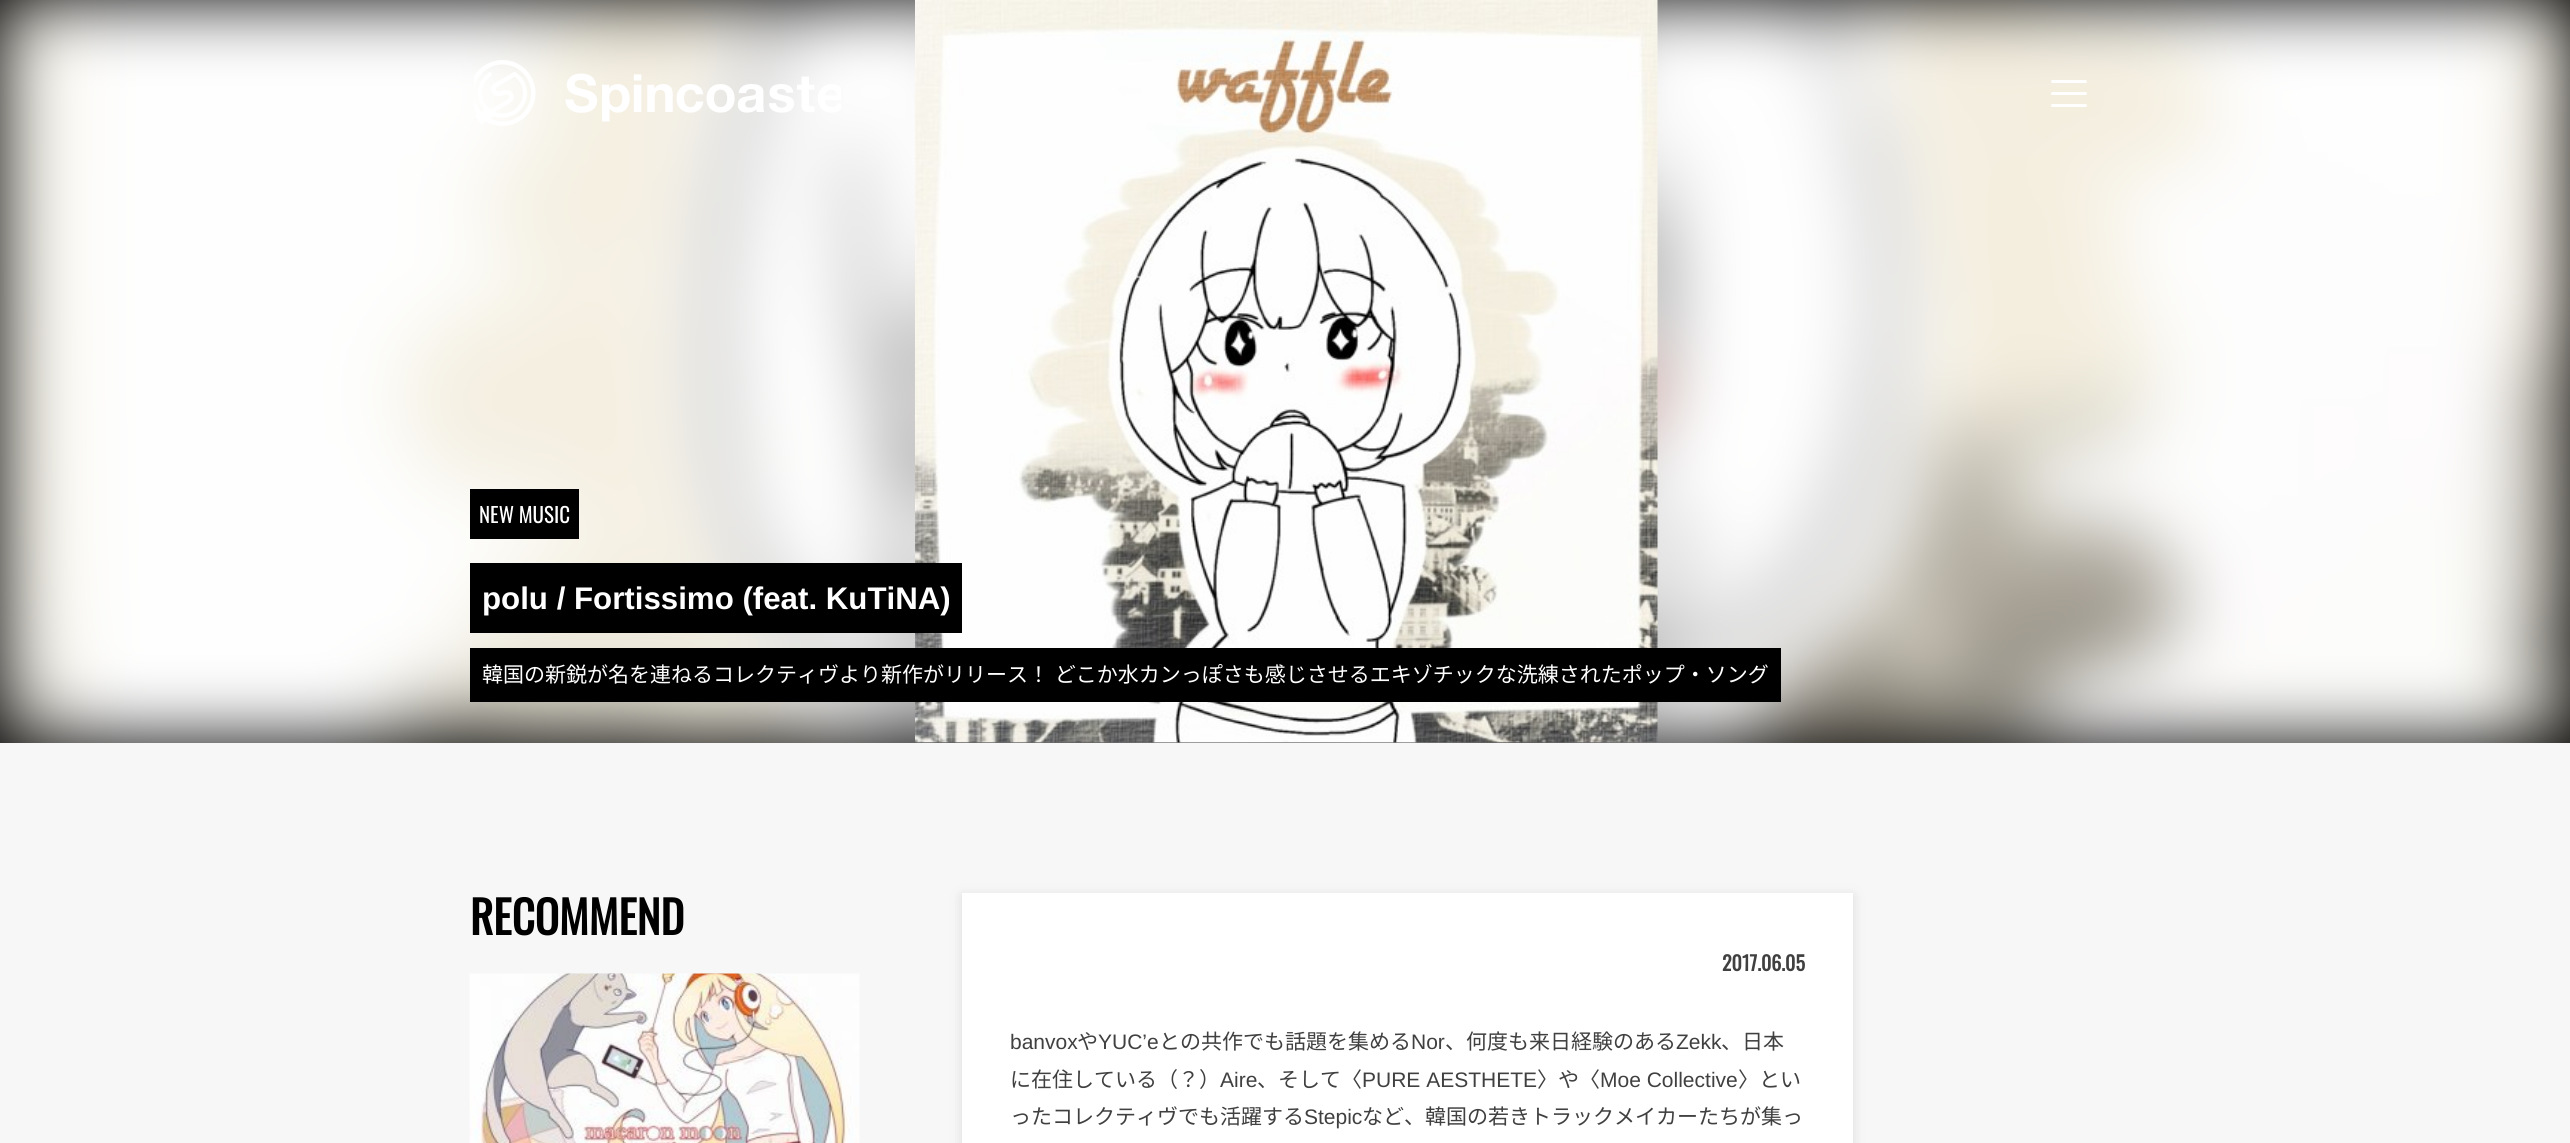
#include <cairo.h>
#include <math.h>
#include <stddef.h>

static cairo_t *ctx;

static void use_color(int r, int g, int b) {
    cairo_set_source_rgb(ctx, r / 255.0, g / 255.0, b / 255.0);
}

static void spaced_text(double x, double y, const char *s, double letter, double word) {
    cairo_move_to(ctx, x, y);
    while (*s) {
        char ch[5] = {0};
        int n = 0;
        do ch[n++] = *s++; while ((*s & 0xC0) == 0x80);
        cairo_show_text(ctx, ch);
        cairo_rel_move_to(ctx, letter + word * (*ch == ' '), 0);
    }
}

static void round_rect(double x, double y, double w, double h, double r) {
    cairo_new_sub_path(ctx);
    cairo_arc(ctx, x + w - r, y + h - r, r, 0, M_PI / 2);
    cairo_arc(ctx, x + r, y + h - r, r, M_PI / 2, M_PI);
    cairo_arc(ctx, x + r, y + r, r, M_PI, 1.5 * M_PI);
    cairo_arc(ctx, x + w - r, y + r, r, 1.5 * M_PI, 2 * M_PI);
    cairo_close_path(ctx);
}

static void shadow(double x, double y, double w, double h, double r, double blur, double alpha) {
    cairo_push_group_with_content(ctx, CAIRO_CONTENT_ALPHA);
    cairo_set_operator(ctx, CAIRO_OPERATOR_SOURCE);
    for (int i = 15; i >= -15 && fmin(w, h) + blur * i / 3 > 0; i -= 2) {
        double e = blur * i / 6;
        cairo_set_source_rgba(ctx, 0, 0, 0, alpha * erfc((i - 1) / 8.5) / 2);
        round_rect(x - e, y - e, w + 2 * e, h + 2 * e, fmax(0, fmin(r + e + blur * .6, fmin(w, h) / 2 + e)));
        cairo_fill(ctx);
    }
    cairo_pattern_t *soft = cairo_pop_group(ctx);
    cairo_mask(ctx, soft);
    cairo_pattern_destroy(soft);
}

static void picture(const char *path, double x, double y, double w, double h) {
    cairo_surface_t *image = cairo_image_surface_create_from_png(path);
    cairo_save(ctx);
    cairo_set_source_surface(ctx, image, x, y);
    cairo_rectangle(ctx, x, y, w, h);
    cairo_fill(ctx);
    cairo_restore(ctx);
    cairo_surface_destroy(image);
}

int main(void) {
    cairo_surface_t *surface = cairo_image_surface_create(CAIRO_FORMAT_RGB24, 2570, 1143);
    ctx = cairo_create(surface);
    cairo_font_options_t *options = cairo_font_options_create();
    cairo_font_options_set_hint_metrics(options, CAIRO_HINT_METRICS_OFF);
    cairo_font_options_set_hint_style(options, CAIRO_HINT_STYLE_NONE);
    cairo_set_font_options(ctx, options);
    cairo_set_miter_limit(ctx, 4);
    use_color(247, 247, 248);
    cairo_paint(ctx);
    use_color(0, 0, 0);
    cairo_rectangle(ctx, 0, 0, 2570, 743);
    cairo_fill(ctx);
    picture("img3.png", 0, 0, 2570, 743);
    picture("img1.png", 474, 60, 62, 66);
    picture("img2.png", 565, 73, 276, 49);
    use_color(255, 255, 255);
    round_rect(2051, 92, 36, 3, 1.5);
    cairo_fill(ctx);
    round_rect(2051, 80, 36, 3, 1.5);
    cairo_fill(ctx);
    round_rect(2051, 104, 36, 3, 1.5);
    cairo_fill(ctx);
    picture("img4.png", 915, 0, 743, 743);
    use_color(0, 0, 0);
    cairo_rectangle(ctx, 470, 489, 109, 50);
    cairo_fill(ctx);
    cairo_select_font_face(ctx, "Oswald", CAIRO_FONT_SLANT_NORMAL, CAIRO_FONT_WEIGHT_NORMAL);
    cairo_set_font_size(ctx, 21);
    use_color(255, 255, 255);
    cairo_move_to(ctx, 479, 523);
    cairo_show_text(ctx, "NEW MUSIC");
    use_color(0, 0, 0);
    cairo_rectangle(ctx, 470, 563, 492, 70);
    cairo_fill(ctx);
    cairo_select_font_face(ctx, "Liberation Sans", CAIRO_FONT_SLANT_NORMAL, CAIRO_FONT_WEIGHT_BOLD);
    cairo_set_font_size(ctx, 31.25);
    use_color(255, 255, 255);
    cairo_move_to(ctx, 482, 609);
    cairo_show_text(ctx, "polu / Fortissimo (feat. KuTiNA)");
    use_color(0, 0, 0);
    cairo_rectangle(ctx, 470, 648, 1311, 54);
    cairo_fill(ctx);
    cairo_select_font_face(ctx, "Noto Sans JP", CAIRO_FONT_SLANT_NORMAL, CAIRO_FONT_WEIGHT_NORMAL);
    cairo_set_font_size(ctx, 21);
    use_color(255, 255, 255);
    spaced_text(482, 682, "韓国の新鋭が名を連ねるコレクティヴより新作がリリース！ どこか水カンっぽさも感じさせるエキゾチックな洗練されたポップ・ソング", 0, 1);
    cairo_select_font_face(ctx, "Oswald", CAIRO_FONT_SLANT_NORMAL, CAIRO_FONT_WEIGHT_BOLD);
    cairo_set_font_size(ctx, 45);
    use_color(0, 0, 0);
    cairo_move_to(ctx, 470, 935);
    cairo_show_text(ctx, "RECOMMEND");
    picture("img5.png", 469, 973, 391, 170);
    use_color(99, 99, 99);
    shadow(962, 896, 891, 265, 0, 6, 0.2);
    use_color(255, 255, 255);
    cairo_rectangle(ctx, 962, 893, 891, 250);
    cairo_fill(ctx);
    cairo_set_font_size(ctx, 20);
    use_color(64, 64, 64);
    cairo_move_to(ctx, 1722, 971);
    cairo_show_text(ctx, "2017.06.05");
    cairo_select_font_face(ctx, "Liberation Sans", CAIRO_FONT_SLANT_NORMAL, CAIRO_FONT_WEIGHT_NORMAL);
    cairo_set_font_size(ctx, 21);
    cairo_move_to(ctx, 1010, 1049);
    cairo_show_text(ctx, "banvox");
    cairo_select_font_face(ctx, "Noto Sans JP", CAIRO_FONT_SLANT_NORMAL, CAIRO_FONT_WEIGHT_NORMAL);
    cairo_move_to(ctx, 1077, 1049);
    cairo_show_text(ctx, "や");
    cairo_select_font_face(ctx, "Liberation Sans", CAIRO_FONT_SLANT_NORMAL, CAIRO_FONT_WEIGHT_NORMAL);
    cairo_move_to(ctx, 1098, 1049);
    cairo_show_text(ctx, "YUC’e");
    cairo_select_font_face(ctx, "Noto Sans JP", CAIRO_FONT_SLANT_NORMAL, CAIRO_FONT_WEIGHT_NORMAL);
    cairo_move_to(ctx, 1159, 1049);
    cairo_show_text(ctx, "との共作でも話題を集める");
    cairo_select_font_face(ctx, "Liberation Sans", CAIRO_FONT_SLANT_NORMAL, CAIRO_FONT_WEIGHT_NORMAL);
    cairo_move_to(ctx, 1411, 1049);
    cairo_show_text(ctx, "Nor");
    cairo_select_font_face(ctx, "Noto Sans JP", CAIRO_FONT_SLANT_NORMAL, CAIRO_FONT_WEIGHT_NORMAL);
    cairo_move_to(ctx, 1445, 1049);
    cairo_show_text(ctx, "、何度も来日経験のある");
    cairo_select_font_face(ctx, "Liberation Sans", CAIRO_FONT_SLANT_NORMAL, CAIRO_FONT_WEIGHT_NORMAL);
    cairo_move_to(ctx, 1676, 1049);
    cairo_show_text(ctx, "Zekk");
    cairo_select_font_face(ctx, "Noto Sans JP", CAIRO_FONT_SLANT_NORMAL, CAIRO_FONT_WEIGHT_NORMAL);
    cairo_move_to(ctx, 1721, 1049);
    cairo_show_text(ctx, "、日本");
    cairo_move_to(ctx, 1010, 1087);
    cairo_show_text(ctx, "に在住している（？）");
    cairo_select_font_face(ctx, "Liberation Sans", CAIRO_FONT_SLANT_NORMAL, CAIRO_FONT_WEIGHT_NORMAL);
    cairo_move_to(ctx, 1220, 1087);
    cairo_show_text(ctx, "Aire");
    cairo_select_font_face(ctx, "Noto Sans JP", CAIRO_FONT_SLANT_NORMAL, CAIRO_FONT_WEIGHT_NORMAL);
    cairo_move_to(ctx, 1257, 1087);
    cairo_show_text(ctx, "、そして〈");
    cairo_select_font_face(ctx, "Liberation Sans", CAIRO_FONT_SLANT_NORMAL, CAIRO_FONT_WEIGHT_NORMAL);
    cairo_move_to(ctx, 1362, 1087);
    cairo_show_text(ctx, "PURE AESTHETE");
    cairo_select_font_face(ctx, "Noto Sans JP", CAIRO_FONT_SLANT_NORMAL, CAIRO_FONT_WEIGHT_NORMAL);
    cairo_move_to(ctx, 1537, 1087);
    cairo_show_text(ctx, "〉や〈");
    cairo_select_font_face(ctx, "Liberation Sans", CAIRO_FONT_SLANT_NORMAL, CAIRO_FONT_WEIGHT_NORMAL);
    cairo_move_to(ctx, 1600, 1087);
    cairo_show_text(ctx, "Moe Collective");
    cairo_select_font_face(ctx, "Noto Sans JP", CAIRO_FONT_SLANT_NORMAL, CAIRO_FONT_WEIGHT_NORMAL);
    cairo_move_to(ctx, 1738, 1087);
    cairo_show_text(ctx, "〉とい");
    cairo_move_to(ctx, 1010, 1124);
    cairo_show_text(ctx, "ったコレクティヴでも活躍する");
    cairo_select_font_face(ctx, "Liberation Sans", CAIRO_FONT_SLANT_NORMAL, CAIRO_FONT_WEIGHT_NORMAL);
    cairo_move_to(ctx, 1304, 1124);
    cairo_show_text(ctx, "Stepic");
    cairo_select_font_face(ctx, "Noto Sans JP", CAIRO_FONT_SLANT_NORMAL, CAIRO_FONT_WEIGHT_NORMAL);
    cairo_move_to(ctx, 1362, 1124);
    cairo_show_text(ctx, "など、韓国の若きトラックメイカーたちが集っ");
    cairo_surface_write_to_png(surface, "result.png");
    cairo_font_options_destroy(options);
    cairo_destroy(ctx);
    cairo_surface_destroy(surface);
    return 0;
}
